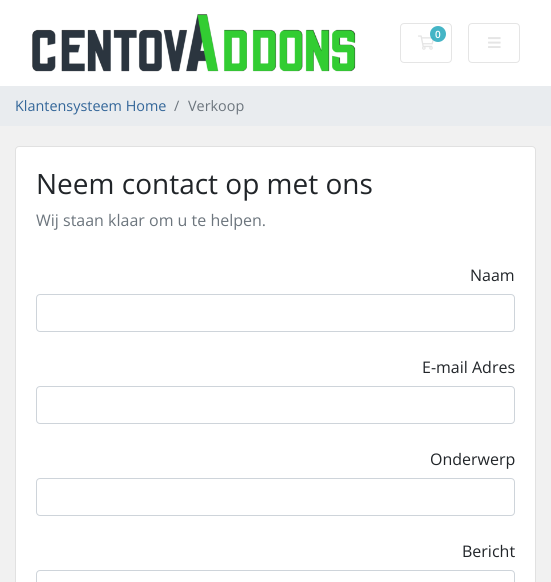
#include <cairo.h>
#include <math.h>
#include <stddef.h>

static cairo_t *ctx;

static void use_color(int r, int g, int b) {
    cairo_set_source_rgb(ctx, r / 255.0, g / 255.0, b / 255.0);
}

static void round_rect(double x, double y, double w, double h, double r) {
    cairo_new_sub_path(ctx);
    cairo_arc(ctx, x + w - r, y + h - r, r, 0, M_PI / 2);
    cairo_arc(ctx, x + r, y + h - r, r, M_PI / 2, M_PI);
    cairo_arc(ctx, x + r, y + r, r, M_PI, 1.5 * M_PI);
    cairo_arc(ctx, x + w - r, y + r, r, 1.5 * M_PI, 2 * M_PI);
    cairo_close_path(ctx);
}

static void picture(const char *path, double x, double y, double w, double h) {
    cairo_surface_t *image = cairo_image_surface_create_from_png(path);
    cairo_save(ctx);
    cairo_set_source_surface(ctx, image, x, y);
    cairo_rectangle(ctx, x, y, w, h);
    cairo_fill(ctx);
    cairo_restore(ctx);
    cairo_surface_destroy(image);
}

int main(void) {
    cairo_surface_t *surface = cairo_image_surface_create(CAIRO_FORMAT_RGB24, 551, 582);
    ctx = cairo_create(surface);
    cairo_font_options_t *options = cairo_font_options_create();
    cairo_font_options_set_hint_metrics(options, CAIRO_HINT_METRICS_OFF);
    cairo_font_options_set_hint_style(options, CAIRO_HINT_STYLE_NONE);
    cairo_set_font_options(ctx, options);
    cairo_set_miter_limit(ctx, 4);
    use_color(241, 241, 241);
    cairo_paint(ctx);
    use_color(255, 255, 255);
    cairo_rectangle(ctx, 0, 0, 551, 86);
    cairo_fill(ctx);
    picture("img1.png", 32, 14, 324, 58);
    round_rect(400.5, 23.5, 51, 39, 3.5);
    use_color(229, 229, 229);
    cairo_set_line_width(ctx, 1);
    cairo_stroke(ctx);
    picture("img2.png", 418, 35, 16, 15);
    cairo_set_source_rgba(ctx, 0.09, 0.635, 0.722, 0.8);
    cairo_arc(ctx, 438, 34, 8, 0, 2 * M_PI);
    cairo_fill(ctx);
    cairo_select_font_face(ctx, "Open Sans SemiBold", CAIRO_FONT_SLANT_NORMAL, CAIRO_FONT_WEIGHT_NORMAL);
    cairo_set_font_size(ctx, 10);
    use_color(255, 255, 255);
    cairo_move_to(ctx, 435, 38);
    cairo_show_text(ctx, "0");
    round_rect(468.5, 23.5, 51, 39, 3.5);
    use_color(229, 229, 229);
    cairo_stroke(ctx);
    picture("img3.png", 488, 37, 13, 11);
    use_color(233, 236, 239);
    cairo_rectangle(ctx, 0, 86, 551, 40);
    cairo_fill(ctx);
    cairo_select_font_face(ctx, "Open Sans", CAIRO_FONT_SLANT_NORMAL, CAIRO_FONT_WEIGHT_NORMAL);
    cairo_set_font_size(ctx, 14.4);
    use_color(51, 102, 153);
    cairo_move_to(ctx, 15, 111);
    cairo_show_text(ctx, "Klantensysteem Home");
    use_color(108, 117, 125);
    cairo_move_to(ctx, 174, 111);
    cairo_show_text(ctx, "/");
    cairo_move_to(ctx, 188, 111);
    cairo_show_text(ctx, "Verkoop");
    use_color(255, 255, 255);
    round_rect(15, 146, 521, 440, 4);
    cairo_fill(ctx);
    round_rect(15.5, 146.5, 520, 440, 3.5);
    cairo_set_source_rgba(ctx, 0, 0, 0, 0.12);
    cairo_stroke(ctx);
    cairo_set_font_size(ctx, 28);
    use_color(33, 37, 41);
    cairo_move_to(ctx, 36, 194);
    cairo_show_text(ctx, "Neem contact op met ons");
    cairo_set_font_size(ctx, 16);
    use_color(108, 117, 125);
    cairo_move_to(ctx, 36, 226);
    cairo_show_text(ctx, "Wij staan klaar om u te helpen.");
    use_color(33, 37, 41);
    cairo_move_to(ctx, 470, 281);
    cairo_show_text(ctx, "Naam");
    round_rect(36.5, 294.5, 478, 37, 3.5);
    use_color(206, 212, 218);
    cairo_stroke(ctx);
    use_color(33, 37, 41);
    cairo_move_to(ctx, 422, 373);
    cairo_show_text(ctx, "E-mail Adres");
    round_rect(36.5, 386.5, 478, 37, 3.5);
    use_color(206, 212, 218);
    cairo_stroke(ctx);
    use_color(33, 37, 41);
    cairo_move_to(ctx, 430, 465);
    cairo_show_text(ctx, "Onderwerp");
    round_rect(36.5, 478.5, 478, 37, 3.5);
    use_color(206, 212, 218);
    cairo_stroke(ctx);
    use_color(33, 37, 41);
    cairo_move_to(ctx, 462, 557);
    cairo_show_text(ctx, "Bericht");
    round_rect(36.5, 570.5, 478, 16, 3.5);
    use_color(206, 212, 218);
    cairo_stroke(ctx);
    cairo_surface_write_to_png(surface, "result.png");
    cairo_font_options_destroy(options);
    cairo_destroy(ctx);
    cairo_surface_destroy(surface);
    return 0;
}
